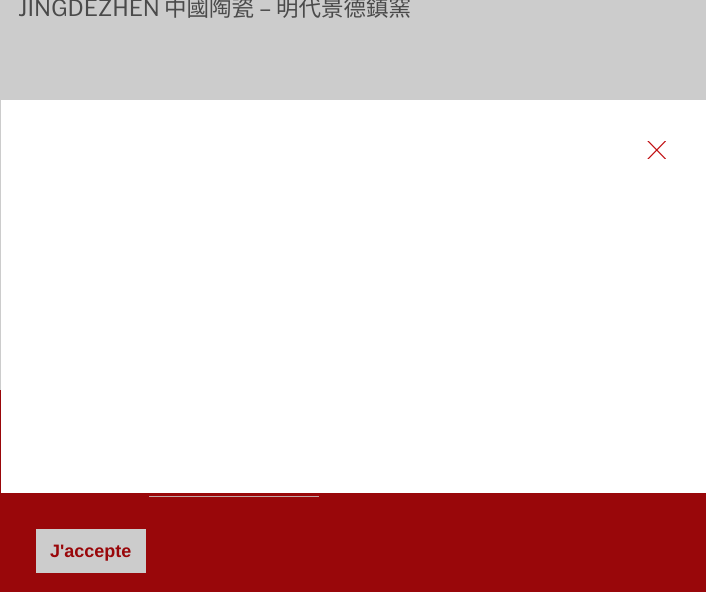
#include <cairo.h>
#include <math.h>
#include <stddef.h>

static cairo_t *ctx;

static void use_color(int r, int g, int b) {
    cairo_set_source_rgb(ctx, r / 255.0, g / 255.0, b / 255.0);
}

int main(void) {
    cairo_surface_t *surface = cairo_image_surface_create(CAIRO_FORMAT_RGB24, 706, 592);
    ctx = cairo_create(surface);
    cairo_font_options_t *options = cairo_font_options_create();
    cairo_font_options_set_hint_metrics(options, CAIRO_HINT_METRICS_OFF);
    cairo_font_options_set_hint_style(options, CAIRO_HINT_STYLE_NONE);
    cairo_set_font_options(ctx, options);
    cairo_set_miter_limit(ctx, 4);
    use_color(204, 204, 204);
    cairo_paint(ctx);
    cairo_select_font_face(ctx, "Libre Franklin", CAIRO_FONT_SLANT_NORMAL, CAIRO_FONT_WEIGHT_NORMAL);
    cairo_set_font_size(ctx, 22.5);
    use_color(74, 74, 74);
    cairo_move_to(ctx, 18, 16);
    cairo_show_text(ctx, "JINGDEZHEN");
    cairo_select_font_face(ctx, "Noto Sans CJK TC", CAIRO_FONT_SLANT_NORMAL, CAIRO_FONT_WEIGHT_NORMAL);
    cairo_move_to(ctx, 164, 16);
    cairo_show_text(ctx, "中國陶瓷");
    cairo_select_font_face(ctx, "Libre Franklin", CAIRO_FONT_SLANT_NORMAL, CAIRO_FONT_WEIGHT_NORMAL);
    cairo_move_to(ctx, 259, 16);
    cairo_show_text(ctx, "–");
    cairo_select_font_face(ctx, "Noto Sans CJK TC", CAIRO_FONT_SLANT_NORMAL, CAIRO_FONT_WEIGHT_NORMAL);
    cairo_move_to(ctx, 276, 16);
    cairo_show_text(ctx, "明代景德鎮窯");
    use_color(153, 7, 10);
    cairo_rectangle(ctx, 0, 390, 706, 202);
    cairo_fill(ctx);
    use_color(255, 255, 255);
    cairo_rectangle(ctx, 1, 100, 705, 393);
    cairo_fill(ctx);
    cairo_save(ctx);
    cairo_rectangle(ctx, 646, 141, 20, 18);
    cairo_clip(ctx);
    cairo_new_path(ctx);
    cairo_move_to(ctx, 665.5, 141);
    cairo_line_to(ctx, 648, 159);
    cairo_move_to(ctx, 665.5, 159);
    cairo_line_to(ctx, 648, 141);
    use_color(191, 9, 12);
    cairo_set_line_width(ctx, 1.2);
    cairo_set_line_cap(ctx, CAIRO_LINE_CAP_ROUND);
    cairo_set_line_join(ctx, CAIRO_LINE_JOIN_ROUND);
    cairo_stroke(ctx);
    cairo_restore(ctx);
    use_color(194, 165, 165);
    cairo_rectangle(ctx, 149, 496, 170, 1);
    cairo_fill(ctx);
    use_color(204, 204, 204);
    cairo_rectangle(ctx, 36, 529, 110, 44);
    cairo_fill(ctx);
    cairo_select_font_face(ctx, "Liberation Sans", CAIRO_FONT_SLANT_NORMAL, CAIRO_FONT_WEIGHT_BOLD);
    cairo_set_font_size(ctx, 18);
    use_color(153, 7, 10);
    cairo_move_to(ctx, 50, 557);
    cairo_show_text(ctx, "J'accepte");
    cairo_surface_write_to_png(surface, "result.png");
    cairo_font_options_destroy(options);
    cairo_destroy(ctx);
    cairo_surface_destroy(surface);
    return 0;
}
